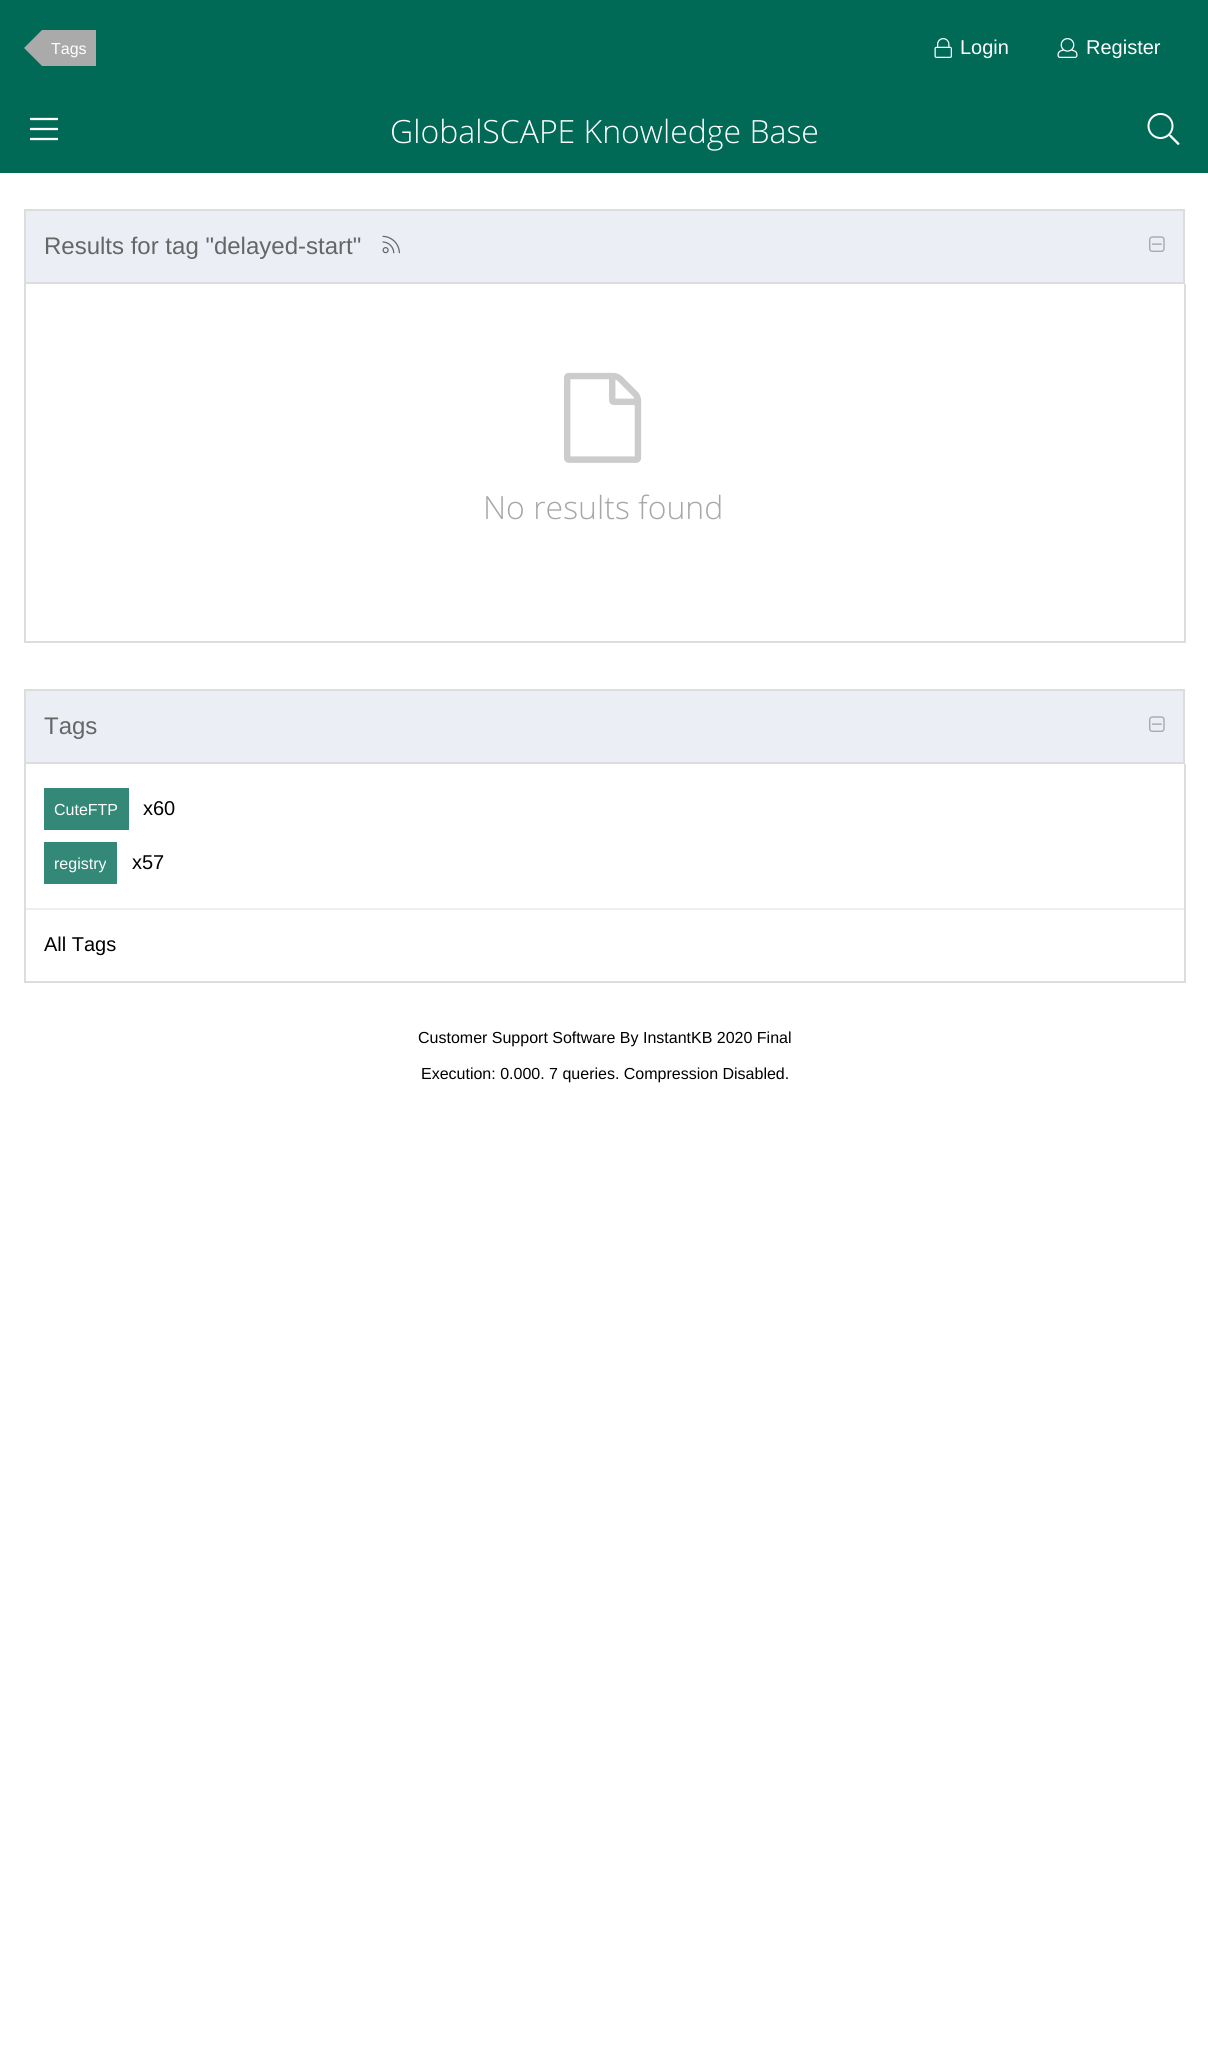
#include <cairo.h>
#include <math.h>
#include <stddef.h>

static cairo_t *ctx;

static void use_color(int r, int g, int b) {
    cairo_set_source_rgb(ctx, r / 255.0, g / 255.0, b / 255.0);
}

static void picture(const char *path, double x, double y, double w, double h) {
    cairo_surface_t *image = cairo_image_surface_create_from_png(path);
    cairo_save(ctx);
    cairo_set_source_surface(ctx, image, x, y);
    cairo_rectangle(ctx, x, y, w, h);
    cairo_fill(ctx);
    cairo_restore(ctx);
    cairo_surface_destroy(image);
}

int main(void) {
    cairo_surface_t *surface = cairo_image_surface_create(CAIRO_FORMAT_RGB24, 1208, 2051);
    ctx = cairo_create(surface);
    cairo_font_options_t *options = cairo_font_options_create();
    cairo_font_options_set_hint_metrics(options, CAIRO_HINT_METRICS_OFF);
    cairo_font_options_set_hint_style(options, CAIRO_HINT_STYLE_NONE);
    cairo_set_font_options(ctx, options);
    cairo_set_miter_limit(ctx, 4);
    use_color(255, 255, 255);
    cairo_paint(ctx);
    use_color(0, 106, 86);
    cairo_rectangle(ctx, 0, 0, 1208, 173);
    cairo_fill(ctx);
    use_color(170, 170, 170);
    cairo_new_path(ctx);
    cairo_move_to(ctx, 42, 30);
    cairo_line_to(ctx, 42, 66);
    cairo_line_to(ctx, 24, 48);
    cairo_close_path(ctx);
    cairo_fill(ctx);
    cairo_rectangle(ctx, 42, 30, 54, 36);
    cairo_fill(ctx);
    cairo_select_font_face(ctx, "Liberation Sans", CAIRO_FONT_SLANT_NORMAL, CAIRO_FONT_WEIGHT_NORMAL);
    cairo_set_font_size(ctx, 16);
    use_color(255, 255, 255);
    cairo_move_to(ctx, 51, 54);
    cairo_show_text(ctx, "Tags");
    picture("img1.png", 934, 38, 18, 20);
    cairo_set_font_size(ctx, 20);
    cairo_move_to(ctx, 960, 54);
    cairo_show_text(ctx, "Login");
    picture("img2.png", 1057, 38, 21, 20);
    cairo_move_to(ctx, 1086, 54);
    cairo_show_text(ctx, "Register");
    picture("img3.png", 30, 117, 28, 24);
    cairo_select_font_face(ctx, "Open Sans Light", CAIRO_FONT_SLANT_NORMAL, CAIRO_FONT_WEIGHT_NORMAL);
    cairo_set_font_size(ctx, 32);
    cairo_move_to(ctx, 390, 143);
    cairo_show_text(ctx, "GlobalSCAPE Knowledge Base");
    picture("img4.png", 1147, 113, 33, 32);
    use_color(235, 239, 245);
    cairo_rectangle(ctx, 25, 210, 1159, 73);
    cairo_fill_preserve(ctx);
    use_color(221, 221, 221);
    cairo_stroke(ctx);
    cairo_select_font_face(ctx, "Liberation Sans", CAIRO_FONT_SLANT_NORMAL, CAIRO_FONT_WEIGHT_NORMAL);
    cairo_set_font_size(ctx, 24);
    use_color(102, 102, 102);
    cairo_move_to(ctx, 44, 254);
    cairo_show_text(ctx, "Results for tag \"delayed-start\"");
    picture("img5.png", 382, 235, 18, 19);
    picture("img6.png", 1149, 236, 16, 16);
    use_color(221, 221, 221);
    cairo_rectangle(ctx, 1184, 284, 2, 359);
    cairo_fill(ctx);
    cairo_rectangle(ctx, 24, 284, 2, 357);
    cairo_fill(ctx);
    picture("img7.png", 564, 372, 78, 91);
    cairo_select_font_face(ctx, "Open Sans Light", CAIRO_FONT_SLANT_NORMAL, CAIRO_FONT_WEIGHT_NORMAL);
    cairo_set_font_size(ctx, 32);
    use_color(167, 167, 167);
    cairo_move_to(ctx, 483, 519);
    cairo_show_text(ctx, "No results found");
    use_color(221, 221, 221);
    cairo_rectangle(ctx, 24, 641, 1161, 2);
    cairo_fill(ctx);
    use_color(235, 239, 245);
    cairo_rectangle(ctx, 25, 690, 1159, 73);
    cairo_fill_preserve(ctx);
    use_color(221, 221, 221);
    cairo_stroke(ctx);
    cairo_select_font_face(ctx, "Liberation Sans", CAIRO_FONT_SLANT_NORMAL, CAIRO_FONT_WEIGHT_NORMAL);
    cairo_set_font_size(ctx, 24);
    use_color(102, 102, 102);
    cairo_move_to(ctx, 44, 734);
    cairo_show_text(ctx, "Tags");
    picture("img6.png", 1149, 716, 16, 16);
    use_color(221, 221, 221);
    cairo_rectangle(ctx, 1184, 764, 2, 219);
    cairo_fill(ctx);
    cairo_rectangle(ctx, 24, 764, 2, 217);
    cairo_fill(ctx);
    use_color(238, 238, 238);
    cairo_rectangle(ctx, 26, 908, 1158, 2);
    cairo_fill(ctx);
    use_color(51, 136, 120);
    cairo_rectangle(ctx, 44, 788, 85, 42);
    cairo_fill(ctx);
    cairo_set_font_size(ctx, 16);
    use_color(255, 255, 255);
    cairo_move_to(ctx, 54, 815);
    cairo_show_text(ctx, "CuteFTP");
    cairo_set_font_size(ctx, 20);
    use_color(0, 0, 0);
    cairo_move_to(ctx, 143, 815);
    cairo_show_text(ctx, "x60");
    use_color(51, 136, 120);
    cairo_rectangle(ctx, 44, 842, 73, 42);
    cairo_fill(ctx);
    cairo_set_font_size(ctx, 16);
    use_color(255, 255, 255);
    cairo_move_to(ctx, 54, 869);
    cairo_show_text(ctx, "registry");
    cairo_set_font_size(ctx, 20);
    use_color(0, 0, 0);
    cairo_move_to(ctx, 132, 869);
    cairo_show_text(ctx, "x57");
    cairo_move_to(ctx, 44, 951);
    cairo_show_text(ctx, "All Tags");
    use_color(221, 221, 221);
    cairo_rectangle(ctx, 24, 981, 1161, 2);
    cairo_fill(ctx);
    cairo_set_font_size(ctx, 16);
    use_color(0, 0, 0);
    cairo_move_to(ctx, 418, 1043);
    cairo_show_text(ctx, "Customer Support Software By InstantKB 2020 Final");
    cairo_move_to(ctx, 421, 1079);
    cairo_show_text(ctx, "Execution: 0.000. 7 queries. Compression Disabled.");
    cairo_surface_write_to_png(surface, "result.png");
    cairo_font_options_destroy(options);
    cairo_destroy(ctx);
    cairo_surface_destroy(surface);
    return 0;
}
